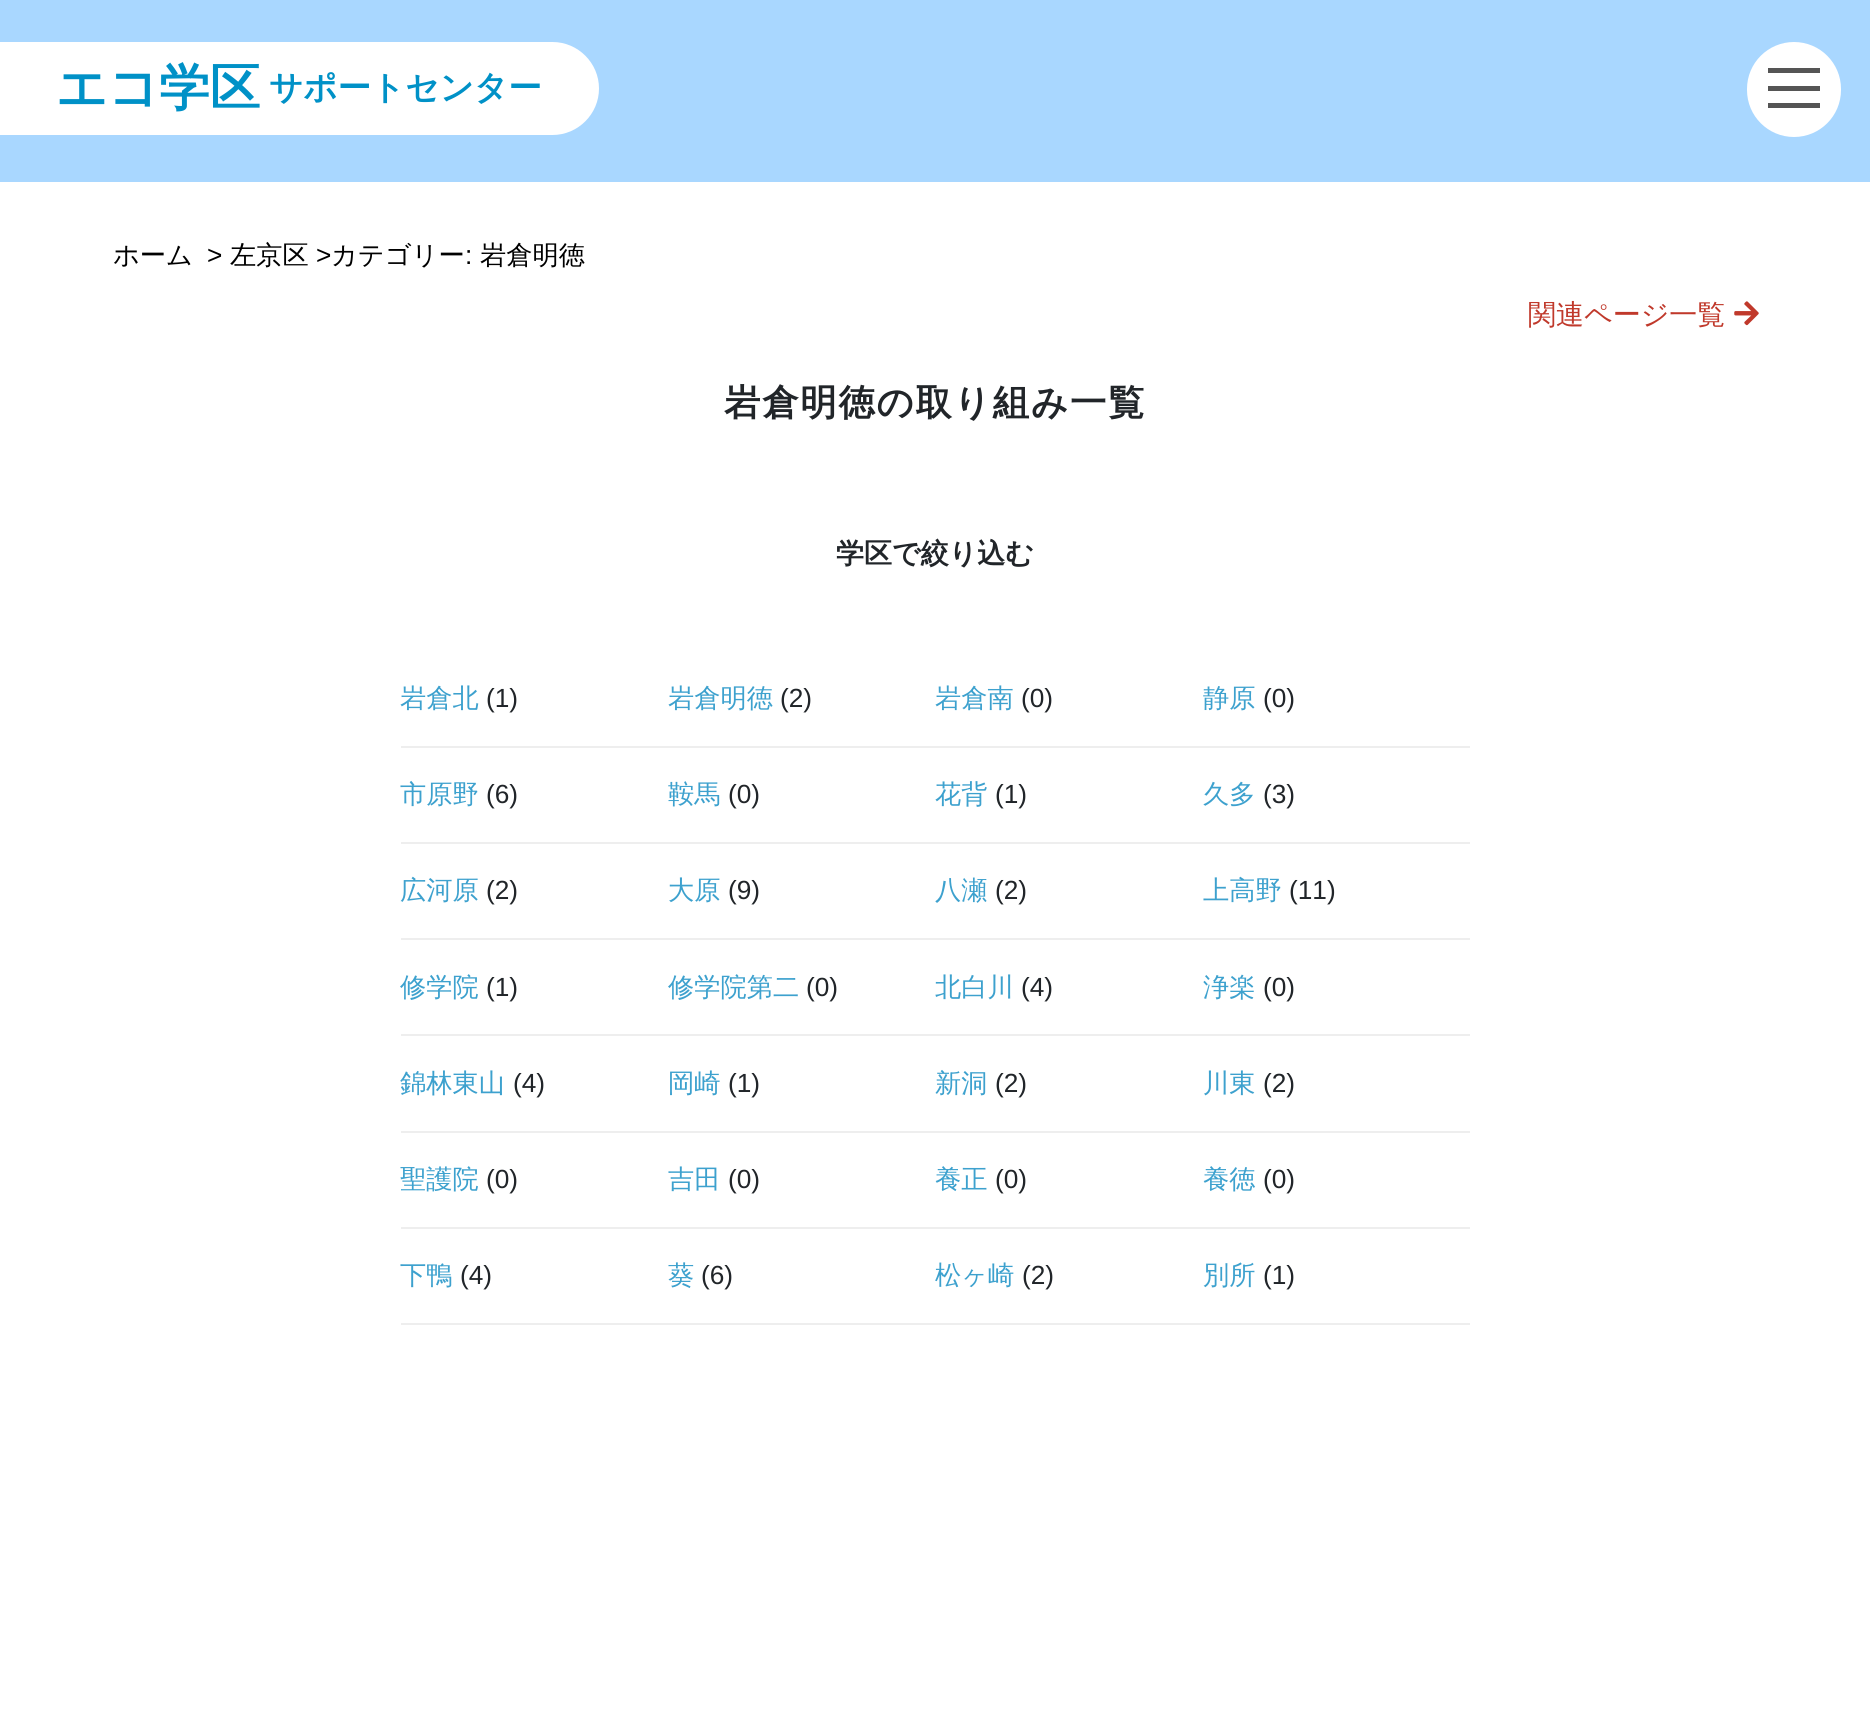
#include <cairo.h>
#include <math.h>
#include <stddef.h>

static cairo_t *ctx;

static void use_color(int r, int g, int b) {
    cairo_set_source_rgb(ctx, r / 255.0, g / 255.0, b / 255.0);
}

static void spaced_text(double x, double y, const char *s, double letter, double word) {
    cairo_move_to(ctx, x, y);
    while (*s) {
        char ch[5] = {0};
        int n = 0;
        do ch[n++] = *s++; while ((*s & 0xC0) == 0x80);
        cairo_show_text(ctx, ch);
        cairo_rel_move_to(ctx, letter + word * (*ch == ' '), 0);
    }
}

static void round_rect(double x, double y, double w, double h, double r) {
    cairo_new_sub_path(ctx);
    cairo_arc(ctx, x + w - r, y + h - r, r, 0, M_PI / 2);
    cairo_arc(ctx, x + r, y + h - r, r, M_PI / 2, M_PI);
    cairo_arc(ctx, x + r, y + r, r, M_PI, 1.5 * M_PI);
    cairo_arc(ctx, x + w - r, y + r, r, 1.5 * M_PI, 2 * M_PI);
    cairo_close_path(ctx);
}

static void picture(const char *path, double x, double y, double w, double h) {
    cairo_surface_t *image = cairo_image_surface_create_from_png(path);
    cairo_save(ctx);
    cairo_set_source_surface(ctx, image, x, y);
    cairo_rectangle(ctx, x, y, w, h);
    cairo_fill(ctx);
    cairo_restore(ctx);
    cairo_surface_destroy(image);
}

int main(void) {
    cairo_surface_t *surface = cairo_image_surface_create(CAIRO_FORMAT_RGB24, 1870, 1729);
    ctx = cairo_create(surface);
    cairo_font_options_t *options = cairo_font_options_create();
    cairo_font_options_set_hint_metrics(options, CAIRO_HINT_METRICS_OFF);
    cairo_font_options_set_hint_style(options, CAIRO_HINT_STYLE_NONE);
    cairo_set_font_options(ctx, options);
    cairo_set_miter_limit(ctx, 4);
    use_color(255, 255, 255);
    cairo_paint(ctx);
    use_color(169, 215, 255);
    cairo_rectangle(ctx, 0, 0, 1870, 182);
    cairo_fill(ctx);
    use_color(255, 255, 255);
    cairo_new_path(ctx);
    cairo_move_to(ctx, 0, 42);
    cairo_line_to(ctx, 552.5, 42);
    cairo_curve_to(ctx, 578, 42, 599, 63, 599, 88.5);
    cairo_curve_to(ctx, 599, 114, 578, 135, 552.5, 135);
    cairo_line_to(ctx, 0, 135);
    cairo_close_path(ctx);
    cairo_fill(ctx);
    cairo_select_font_face(ctx, "WenQuanYi Zen Hei", CAIRO_FONT_SLANT_NORMAL, CAIRO_FONT_WEIGHT_BOLD);
    cairo_set_font_size(ctx, 50.5);
    use_color(0, 145, 199);
    cairo_move_to(ctx, 56, 105);
    cairo_show_text(ctx, "エコ学区");
    cairo_set_font_size(ctx, 33.5);
    cairo_move_to(ctx, 269, 99);
    cairo_show_text(ctx, "サポートセンター");
    use_color(255, 255, 255);
    round_rect(1747, 42, 94, 95, 47);
    cairo_fill(ctx);
    use_color(85, 85, 85);
    cairo_rectangle(ctx, 1768, 68, 52, 5);
    cairo_fill(ctx);
    cairo_rectangle(ctx, 1768, 86, 52, 5);
    cairo_fill(ctx);
    cairo_rectangle(ctx, 1768, 103, 52, 5);
    cairo_fill(ctx);
    cairo_select_font_face(ctx, "WenQuanYi Zen Hei Medium", CAIRO_FONT_SLANT_NORMAL, CAIRO_FONT_WEIGHT_NORMAL);
    cairo_set_font_size(ctx, 26.25);
    use_color(0, 0, 0);
    cairo_move_to(ctx, 113, 264);
    cairo_show_text(ctx, "ホーム");
    cairo_select_font_face(ctx, "Liberation Sans", CAIRO_FONT_SLANT_NORMAL, CAIRO_FONT_WEIGHT_NORMAL);
    cairo_move_to(ctx, 207, 264);
    cairo_show_text(ctx, ">");
    cairo_select_font_face(ctx, "WenQuanYi Zen Hei Medium", CAIRO_FONT_SLANT_NORMAL, CAIRO_FONT_WEIGHT_NORMAL);
    cairo_move_to(ctx, 230, 264);
    cairo_show_text(ctx, "左京区");
    cairo_select_font_face(ctx, "Liberation Sans", CAIRO_FONT_SLANT_NORMAL, CAIRO_FONT_WEIGHT_NORMAL);
    cairo_move_to(ctx, 316, 264);
    cairo_show_text(ctx, ">");
    cairo_select_font_face(ctx, "WenQuanYi Zen Hei Medium", CAIRO_FONT_SLANT_NORMAL, CAIRO_FONT_WEIGHT_NORMAL);
    cairo_move_to(ctx, 331, 264);
    cairo_show_text(ctx, "カテゴリー");
    cairo_select_font_face(ctx, "Liberation Sans", CAIRO_FONT_SLANT_NORMAL, CAIRO_FONT_WEIGHT_NORMAL);
    cairo_move_to(ctx, 465, 264);
    cairo_show_text(ctx, ":");
    cairo_select_font_face(ctx, "WenQuanYi Zen Hei Medium", CAIRO_FONT_SLANT_NORMAL, CAIRO_FONT_WEIGHT_NORMAL);
    cairo_move_to(ctx, 480, 264);
    cairo_show_text(ctx, "岩倉明徳");
    cairo_set_font_size(ctx, 28);
    use_color(192, 57, 43);
    cairo_move_to(ctx, 1528, 324);
    cairo_show_text(ctx, "関連ページ一覧");
    picture("img1.png", 1734, 301, 25, 25);
    cairo_select_font_face(ctx, "WenQuanYi Zen Hei", CAIRO_FONT_SLANT_NORMAL, CAIRO_FONT_WEIGHT_BOLD);
    cairo_set_font_size(ctx, 36.4);
    use_color(33, 37, 41);
    spaced_text(724, 415, "岩倉明徳の取り組み一覧", 1.75, 0);
    cairo_set_font_size(ctx, 28);
    cairo_move_to(ctx, 836, 563);
    cairo_show_text(ctx, "学区で絞り込む");
    use_color(238, 238, 238);
    cairo_rectangle(ctx, 401, 746, 1069, 2);
    cairo_fill(ctx);
    cairo_select_font_face(ctx, "WenQuanYi Zen Hei Medium", CAIRO_FONT_SLANT_NORMAL, CAIRO_FONT_WEIGHT_NORMAL);
    cairo_set_font_size(ctx, 26.25);
    use_color(61, 161, 206);
    cairo_move_to(ctx, 400, 707);
    cairo_show_text(ctx, "岩倉北");
    cairo_select_font_face(ctx, "Liberation Sans", CAIRO_FONT_SLANT_NORMAL, CAIRO_FONT_WEIGHT_NORMAL);
    use_color(33, 37, 41);
    cairo_move_to(ctx, 486, 707);
    cairo_show_text(ctx, "(1)");
    cairo_select_font_face(ctx, "WenQuanYi Zen Hei Medium", CAIRO_FONT_SLANT_NORMAL, CAIRO_FONT_WEIGHT_NORMAL);
    use_color(61, 161, 206);
    cairo_move_to(ctx, 668, 707);
    cairo_show_text(ctx, "岩倉明徳");
    cairo_select_font_face(ctx, "Liberation Sans", CAIRO_FONT_SLANT_NORMAL, CAIRO_FONT_WEIGHT_NORMAL);
    use_color(33, 37, 41);
    cairo_move_to(ctx, 780, 707);
    cairo_show_text(ctx, "(2)");
    cairo_select_font_face(ctx, "WenQuanYi Zen Hei Medium", CAIRO_FONT_SLANT_NORMAL, CAIRO_FONT_WEIGHT_NORMAL);
    use_color(61, 161, 206);
    cairo_move_to(ctx, 935, 707);
    cairo_show_text(ctx, "岩倉南");
    cairo_select_font_face(ctx, "Liberation Sans", CAIRO_FONT_SLANT_NORMAL, CAIRO_FONT_WEIGHT_NORMAL);
    use_color(33, 37, 41);
    cairo_move_to(ctx, 1021, 707);
    cairo_show_text(ctx, "(0)");
    cairo_select_font_face(ctx, "WenQuanYi Zen Hei Medium", CAIRO_FONT_SLANT_NORMAL, CAIRO_FONT_WEIGHT_NORMAL);
    use_color(61, 161, 206);
    cairo_move_to(ctx, 1203, 707);
    cairo_show_text(ctx, "静原");
    cairo_select_font_face(ctx, "Liberation Sans", CAIRO_FONT_SLANT_NORMAL, CAIRO_FONT_WEIGHT_NORMAL);
    use_color(33, 37, 41);
    cairo_move_to(ctx, 1263, 707);
    cairo_show_text(ctx, "(0)");
    use_color(238, 238, 238);
    cairo_rectangle(ctx, 401, 842, 1069, 2);
    cairo_fill(ctx);
    cairo_select_font_face(ctx, "WenQuanYi Zen Hei Medium", CAIRO_FONT_SLANT_NORMAL, CAIRO_FONT_WEIGHT_NORMAL);
    use_color(61, 161, 206);
    cairo_move_to(ctx, 400, 803);
    cairo_show_text(ctx, "市原野");
    cairo_select_font_face(ctx, "Liberation Sans", CAIRO_FONT_SLANT_NORMAL, CAIRO_FONT_WEIGHT_NORMAL);
    use_color(33, 37, 41);
    cairo_move_to(ctx, 486, 803);
    cairo_show_text(ctx, "(6)");
    cairo_select_font_face(ctx, "WenQuanYi Zen Hei Medium", CAIRO_FONT_SLANT_NORMAL, CAIRO_FONT_WEIGHT_NORMAL);
    use_color(61, 161, 206);
    cairo_move_to(ctx, 668, 803);
    cairo_show_text(ctx, "鞍馬");
    cairo_select_font_face(ctx, "Liberation Sans", CAIRO_FONT_SLANT_NORMAL, CAIRO_FONT_WEIGHT_NORMAL);
    use_color(33, 37, 41);
    cairo_move_to(ctx, 728, 803);
    cairo_show_text(ctx, "(0)");
    cairo_select_font_face(ctx, "WenQuanYi Zen Hei Medium", CAIRO_FONT_SLANT_NORMAL, CAIRO_FONT_WEIGHT_NORMAL);
    use_color(61, 161, 206);
    cairo_move_to(ctx, 935, 803);
    cairo_show_text(ctx, "花背");
    cairo_select_font_face(ctx, "Liberation Sans", CAIRO_FONT_SLANT_NORMAL, CAIRO_FONT_WEIGHT_NORMAL);
    use_color(33, 37, 41);
    cairo_move_to(ctx, 995, 803);
    cairo_show_text(ctx, "(1)");
    cairo_select_font_face(ctx, "WenQuanYi Zen Hei Medium", CAIRO_FONT_SLANT_NORMAL, CAIRO_FONT_WEIGHT_NORMAL);
    use_color(61, 161, 206);
    cairo_move_to(ctx, 1203, 803);
    cairo_show_text(ctx, "久多");
    cairo_select_font_face(ctx, "Liberation Sans", CAIRO_FONT_SLANT_NORMAL, CAIRO_FONT_WEIGHT_NORMAL);
    use_color(33, 37, 41);
    cairo_move_to(ctx, 1263, 803);
    cairo_show_text(ctx, "(3)");
    use_color(238, 238, 238);
    cairo_rectangle(ctx, 401, 938, 1069, 2);
    cairo_fill(ctx);
    cairo_select_font_face(ctx, "WenQuanYi Zen Hei Medium", CAIRO_FONT_SLANT_NORMAL, CAIRO_FONT_WEIGHT_NORMAL);
    use_color(61, 161, 206);
    cairo_move_to(ctx, 400, 899);
    cairo_show_text(ctx, "広河原");
    cairo_select_font_face(ctx, "Liberation Sans", CAIRO_FONT_SLANT_NORMAL, CAIRO_FONT_WEIGHT_NORMAL);
    use_color(33, 37, 41);
    cairo_move_to(ctx, 486, 899);
    cairo_show_text(ctx, "(2)");
    cairo_select_font_face(ctx, "WenQuanYi Zen Hei Medium", CAIRO_FONT_SLANT_NORMAL, CAIRO_FONT_WEIGHT_NORMAL);
    use_color(61, 161, 206);
    cairo_move_to(ctx, 668, 899);
    cairo_show_text(ctx, "大原");
    cairo_select_font_face(ctx, "Liberation Sans", CAIRO_FONT_SLANT_NORMAL, CAIRO_FONT_WEIGHT_NORMAL);
    use_color(33, 37, 41);
    cairo_move_to(ctx, 728, 899);
    cairo_show_text(ctx, "(9)");
    cairo_select_font_face(ctx, "WenQuanYi Zen Hei Medium", CAIRO_FONT_SLANT_NORMAL, CAIRO_FONT_WEIGHT_NORMAL);
    use_color(61, 161, 206);
    cairo_move_to(ctx, 935, 899);
    cairo_show_text(ctx, "八瀬");
    cairo_select_font_face(ctx, "Liberation Sans", CAIRO_FONT_SLANT_NORMAL, CAIRO_FONT_WEIGHT_NORMAL);
    use_color(33, 37, 41);
    cairo_move_to(ctx, 995, 899);
    cairo_show_text(ctx, "(2)");
    cairo_select_font_face(ctx, "WenQuanYi Zen Hei Medium", CAIRO_FONT_SLANT_NORMAL, CAIRO_FONT_WEIGHT_NORMAL);
    use_color(61, 161, 206);
    cairo_move_to(ctx, 1203, 899);
    cairo_show_text(ctx, "上高野");
    cairo_select_font_face(ctx, "Liberation Sans", CAIRO_FONT_SLANT_NORMAL, CAIRO_FONT_WEIGHT_NORMAL);
    use_color(33, 37, 41);
    cairo_move_to(ctx, 1289, 899);
    cairo_show_text(ctx, "(11)");
    use_color(238, 238, 238);
    cairo_rectangle(ctx, 401, 1034, 1069, 2);
    cairo_fill(ctx);
    cairo_select_font_face(ctx, "WenQuanYi Zen Hei Medium", CAIRO_FONT_SLANT_NORMAL, CAIRO_FONT_WEIGHT_NORMAL);
    use_color(61, 161, 206);
    cairo_move_to(ctx, 400, 996);
    cairo_show_text(ctx, "修学院");
    cairo_select_font_face(ctx, "Liberation Sans", CAIRO_FONT_SLANT_NORMAL, CAIRO_FONT_WEIGHT_NORMAL);
    use_color(33, 37, 41);
    cairo_move_to(ctx, 486, 996);
    cairo_show_text(ctx, "(1)");
    cairo_select_font_face(ctx, "WenQuanYi Zen Hei Medium", CAIRO_FONT_SLANT_NORMAL, CAIRO_FONT_WEIGHT_NORMAL);
    use_color(61, 161, 206);
    cairo_move_to(ctx, 668, 996);
    cairo_show_text(ctx, "修学院第二");
    cairo_select_font_face(ctx, "Liberation Sans", CAIRO_FONT_SLANT_NORMAL, CAIRO_FONT_WEIGHT_NORMAL);
    use_color(33, 37, 41);
    cairo_move_to(ctx, 806, 996);
    cairo_show_text(ctx, "(0)");
    cairo_select_font_face(ctx, "WenQuanYi Zen Hei Medium", CAIRO_FONT_SLANT_NORMAL, CAIRO_FONT_WEIGHT_NORMAL);
    use_color(61, 161, 206);
    cairo_move_to(ctx, 935, 996);
    cairo_show_text(ctx, "北白川");
    cairo_select_font_face(ctx, "Liberation Sans", CAIRO_FONT_SLANT_NORMAL, CAIRO_FONT_WEIGHT_NORMAL);
    use_color(33, 37, 41);
    cairo_move_to(ctx, 1021, 996);
    cairo_show_text(ctx, "(4)");
    cairo_select_font_face(ctx, "WenQuanYi Zen Hei Medium", CAIRO_FONT_SLANT_NORMAL, CAIRO_FONT_WEIGHT_NORMAL);
    use_color(61, 161, 206);
    cairo_move_to(ctx, 1203, 996);
    cairo_show_text(ctx, "浄楽");
    cairo_select_font_face(ctx, "Liberation Sans", CAIRO_FONT_SLANT_NORMAL, CAIRO_FONT_WEIGHT_NORMAL);
    use_color(33, 37, 41);
    cairo_move_to(ctx, 1263, 996);
    cairo_show_text(ctx, "(0)");
    use_color(238, 238, 238);
    cairo_rectangle(ctx, 401, 1131, 1069, 2);
    cairo_fill(ctx);
    cairo_select_font_face(ctx, "WenQuanYi Zen Hei Medium", CAIRO_FONT_SLANT_NORMAL, CAIRO_FONT_WEIGHT_NORMAL);
    use_color(61, 161, 206);
    cairo_move_to(ctx, 400, 1092);
    cairo_show_text(ctx, "錦林東山");
    cairo_select_font_face(ctx, "Liberation Sans", CAIRO_FONT_SLANT_NORMAL, CAIRO_FONT_WEIGHT_NORMAL);
    use_color(33, 37, 41);
    cairo_move_to(ctx, 513, 1092);
    cairo_show_text(ctx, "(4)");
    cairo_select_font_face(ctx, "WenQuanYi Zen Hei Medium", CAIRO_FONT_SLANT_NORMAL, CAIRO_FONT_WEIGHT_NORMAL);
    use_color(61, 161, 206);
    cairo_move_to(ctx, 668, 1092);
    cairo_show_text(ctx, "岡崎");
    cairo_select_font_face(ctx, "Liberation Sans", CAIRO_FONT_SLANT_NORMAL, CAIRO_FONT_WEIGHT_NORMAL);
    use_color(33, 37, 41);
    cairo_move_to(ctx, 728, 1092);
    cairo_show_text(ctx, "(1)");
    cairo_select_font_face(ctx, "WenQuanYi Zen Hei Medium", CAIRO_FONT_SLANT_NORMAL, CAIRO_FONT_WEIGHT_NORMAL);
    use_color(61, 161, 206);
    cairo_move_to(ctx, 935, 1092);
    cairo_show_text(ctx, "新洞");
    cairo_select_font_face(ctx, "Liberation Sans", CAIRO_FONT_SLANT_NORMAL, CAIRO_FONT_WEIGHT_NORMAL);
    use_color(33, 37, 41);
    cairo_move_to(ctx, 995, 1092);
    cairo_show_text(ctx, "(2)");
    cairo_select_font_face(ctx, "WenQuanYi Zen Hei Medium", CAIRO_FONT_SLANT_NORMAL, CAIRO_FONT_WEIGHT_NORMAL);
    use_color(61, 161, 206);
    cairo_move_to(ctx, 1203, 1092);
    cairo_show_text(ctx, "川東");
    cairo_select_font_face(ctx, "Liberation Sans", CAIRO_FONT_SLANT_NORMAL, CAIRO_FONT_WEIGHT_NORMAL);
    use_color(33, 37, 41);
    cairo_move_to(ctx, 1263, 1092);
    cairo_show_text(ctx, "(2)");
    use_color(238, 238, 238);
    cairo_rectangle(ctx, 401, 1227, 1069, 2);
    cairo_fill(ctx);
    cairo_select_font_face(ctx, "WenQuanYi Zen Hei Medium", CAIRO_FONT_SLANT_NORMAL, CAIRO_FONT_WEIGHT_NORMAL);
    use_color(61, 161, 206);
    cairo_move_to(ctx, 400, 1188);
    cairo_show_text(ctx, "聖護院");
    cairo_select_font_face(ctx, "Liberation Sans", CAIRO_FONT_SLANT_NORMAL, CAIRO_FONT_WEIGHT_NORMAL);
    use_color(33, 37, 41);
    cairo_move_to(ctx, 486, 1188);
    cairo_show_text(ctx, "(0)");
    cairo_select_font_face(ctx, "WenQuanYi Zen Hei Medium", CAIRO_FONT_SLANT_NORMAL, CAIRO_FONT_WEIGHT_NORMAL);
    use_color(61, 161, 206);
    cairo_move_to(ctx, 668, 1188);
    cairo_show_text(ctx, "吉田");
    cairo_select_font_face(ctx, "Liberation Sans", CAIRO_FONT_SLANT_NORMAL, CAIRO_FONT_WEIGHT_NORMAL);
    use_color(33, 37, 41);
    cairo_move_to(ctx, 728, 1188);
    cairo_show_text(ctx, "(0)");
    cairo_select_font_face(ctx, "WenQuanYi Zen Hei Medium", CAIRO_FONT_SLANT_NORMAL, CAIRO_FONT_WEIGHT_NORMAL);
    use_color(61, 161, 206);
    cairo_move_to(ctx, 935, 1188);
    cairo_show_text(ctx, "養正");
    cairo_select_font_face(ctx, "Liberation Sans", CAIRO_FONT_SLANT_NORMAL, CAIRO_FONT_WEIGHT_NORMAL);
    use_color(33, 37, 41);
    cairo_move_to(ctx, 995, 1188);
    cairo_show_text(ctx, "(0)");
    cairo_select_font_face(ctx, "WenQuanYi Zen Hei Medium", CAIRO_FONT_SLANT_NORMAL, CAIRO_FONT_WEIGHT_NORMAL);
    use_color(61, 161, 206);
    cairo_move_to(ctx, 1203, 1188);
    cairo_show_text(ctx, "養徳");
    cairo_select_font_face(ctx, "Liberation Sans", CAIRO_FONT_SLANT_NORMAL, CAIRO_FONT_WEIGHT_NORMAL);
    use_color(33, 37, 41);
    cairo_move_to(ctx, 1263, 1188);
    cairo_show_text(ctx, "(0)");
    use_color(238, 238, 238);
    cairo_rectangle(ctx, 401, 1323, 1069, 2);
    cairo_fill(ctx);
    cairo_select_font_face(ctx, "WenQuanYi Zen Hei Medium", CAIRO_FONT_SLANT_NORMAL, CAIRO_FONT_WEIGHT_NORMAL);
    use_color(61, 161, 206);
    cairo_move_to(ctx, 400, 1284);
    cairo_show_text(ctx, "下鴨");
    cairo_select_font_face(ctx, "Liberation Sans", CAIRO_FONT_SLANT_NORMAL, CAIRO_FONT_WEIGHT_NORMAL);
    use_color(33, 37, 41);
    cairo_move_to(ctx, 460, 1284);
    cairo_show_text(ctx, "(4)");
    cairo_select_font_face(ctx, "WenQuanYi Zen Hei Medium", CAIRO_FONT_SLANT_NORMAL, CAIRO_FONT_WEIGHT_NORMAL);
    use_color(61, 161, 206);
    cairo_move_to(ctx, 668, 1284);
    cairo_show_text(ctx, "葵");
    cairo_select_font_face(ctx, "Liberation Sans", CAIRO_FONT_SLANT_NORMAL, CAIRO_FONT_WEIGHT_NORMAL);
    use_color(33, 37, 41);
    cairo_move_to(ctx, 701, 1284);
    cairo_show_text(ctx, "(6)");
    cairo_select_font_face(ctx, "WenQuanYi Zen Hei Medium", CAIRO_FONT_SLANT_NORMAL, CAIRO_FONT_WEIGHT_NORMAL);
    use_color(61, 161, 206);
    cairo_move_to(ctx, 935, 1284);
    cairo_show_text(ctx, "松ヶ崎");
    cairo_select_font_face(ctx, "Liberation Sans", CAIRO_FONT_SLANT_NORMAL, CAIRO_FONT_WEIGHT_NORMAL);
    use_color(33, 37, 41);
    cairo_move_to(ctx, 1022, 1284);
    cairo_show_text(ctx, "(2)");
    cairo_select_font_face(ctx, "WenQuanYi Zen Hei Medium", CAIRO_FONT_SLANT_NORMAL, CAIRO_FONT_WEIGHT_NORMAL);
    use_color(61, 161, 206);
    cairo_move_to(ctx, 1203, 1284);
    cairo_show_text(ctx, "別所");
    cairo_select_font_face(ctx, "Liberation Sans", CAIRO_FONT_SLANT_NORMAL, CAIRO_FONT_WEIGHT_NORMAL);
    use_color(33, 37, 41);
    cairo_move_to(ctx, 1263, 1284);
    cairo_show_text(ctx, "(1)");
    cairo_surface_write_to_png(surface, "result.png");
    cairo_font_options_destroy(options);
    cairo_destroy(ctx);
    cairo_surface_destroy(surface);
    return 0;
}
